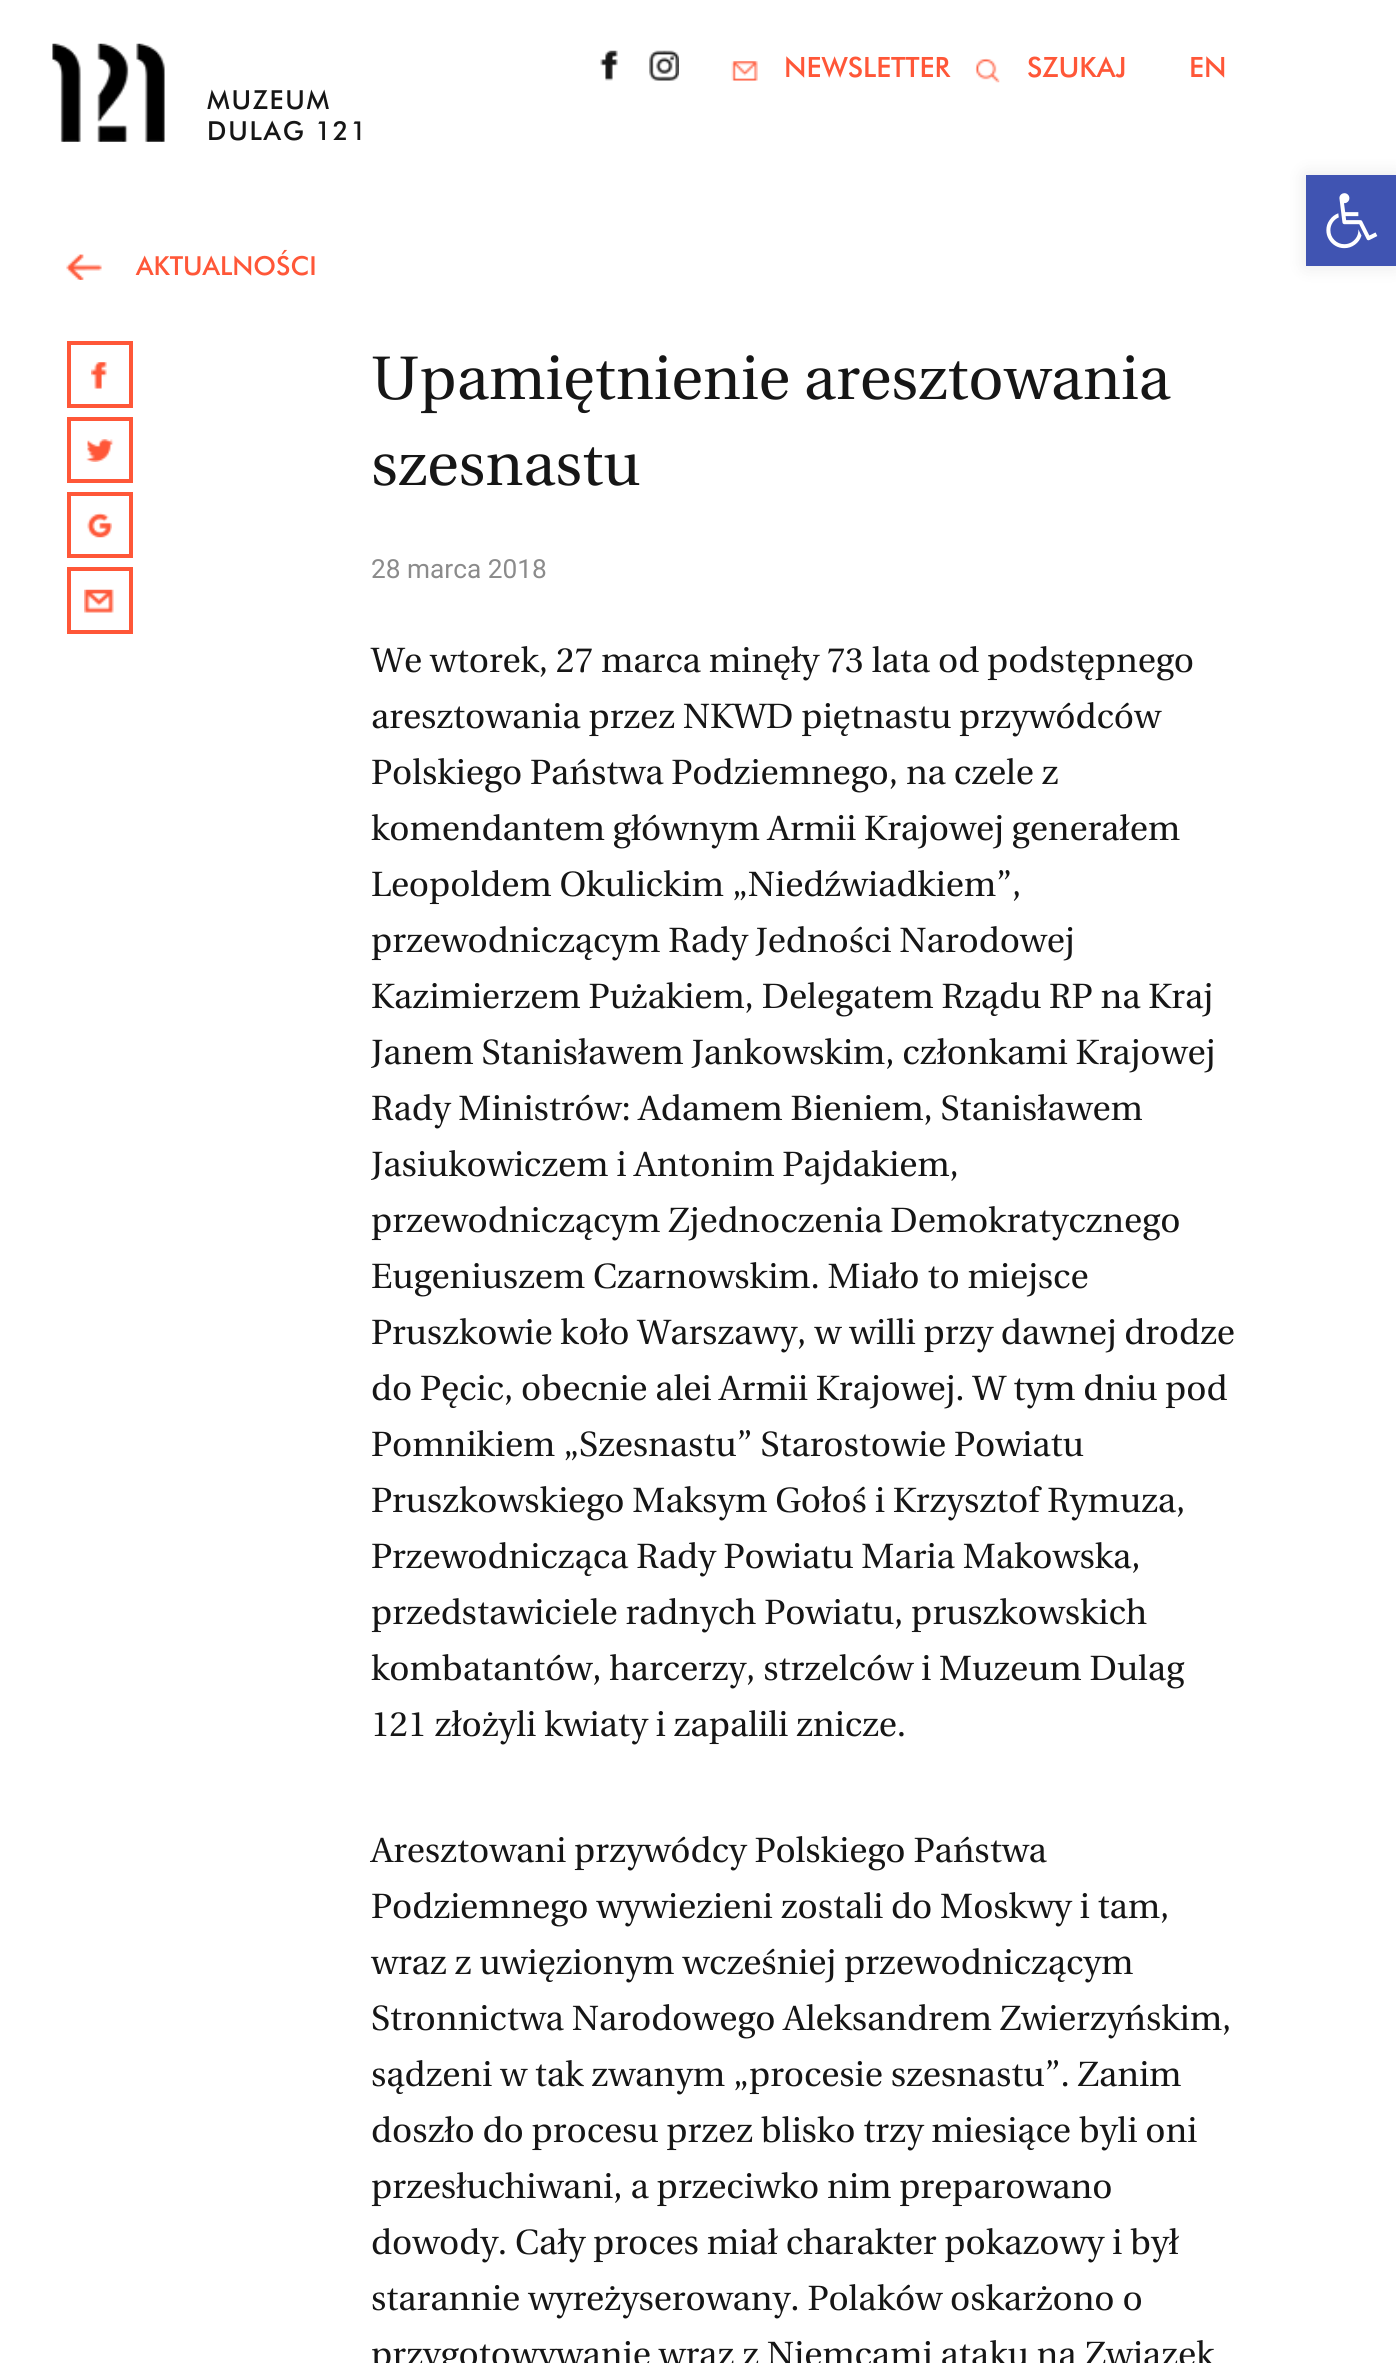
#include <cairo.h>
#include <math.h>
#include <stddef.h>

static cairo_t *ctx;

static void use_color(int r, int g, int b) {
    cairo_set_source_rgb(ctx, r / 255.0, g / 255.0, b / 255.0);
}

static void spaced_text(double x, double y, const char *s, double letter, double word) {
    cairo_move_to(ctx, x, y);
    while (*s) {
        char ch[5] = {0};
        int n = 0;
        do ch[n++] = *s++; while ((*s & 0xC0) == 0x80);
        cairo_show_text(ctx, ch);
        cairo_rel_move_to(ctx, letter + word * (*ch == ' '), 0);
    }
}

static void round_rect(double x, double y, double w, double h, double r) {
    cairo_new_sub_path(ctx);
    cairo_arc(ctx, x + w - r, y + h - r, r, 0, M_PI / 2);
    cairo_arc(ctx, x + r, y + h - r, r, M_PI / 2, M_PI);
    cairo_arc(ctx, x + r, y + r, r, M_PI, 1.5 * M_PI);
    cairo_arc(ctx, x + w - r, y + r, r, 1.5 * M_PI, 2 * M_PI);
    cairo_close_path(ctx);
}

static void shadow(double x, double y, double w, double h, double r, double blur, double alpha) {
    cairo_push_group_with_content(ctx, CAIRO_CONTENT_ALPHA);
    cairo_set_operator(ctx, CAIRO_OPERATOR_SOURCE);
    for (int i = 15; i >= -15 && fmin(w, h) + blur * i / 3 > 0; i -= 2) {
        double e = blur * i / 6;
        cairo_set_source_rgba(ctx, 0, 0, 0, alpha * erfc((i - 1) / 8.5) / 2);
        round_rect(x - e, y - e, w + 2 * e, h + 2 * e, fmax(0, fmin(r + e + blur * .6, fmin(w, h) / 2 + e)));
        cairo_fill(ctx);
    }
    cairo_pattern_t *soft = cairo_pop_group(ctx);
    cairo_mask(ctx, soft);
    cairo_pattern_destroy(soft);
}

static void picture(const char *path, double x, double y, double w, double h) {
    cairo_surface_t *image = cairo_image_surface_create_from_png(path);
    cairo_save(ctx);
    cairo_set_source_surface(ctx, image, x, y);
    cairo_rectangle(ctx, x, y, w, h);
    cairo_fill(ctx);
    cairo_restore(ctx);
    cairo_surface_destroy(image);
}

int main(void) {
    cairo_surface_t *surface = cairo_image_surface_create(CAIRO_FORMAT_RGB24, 1396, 2363);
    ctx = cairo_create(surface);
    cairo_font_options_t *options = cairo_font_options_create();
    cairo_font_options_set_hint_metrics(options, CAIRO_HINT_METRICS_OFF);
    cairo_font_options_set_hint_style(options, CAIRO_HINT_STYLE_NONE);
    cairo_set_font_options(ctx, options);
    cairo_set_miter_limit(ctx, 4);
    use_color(255, 255, 255);
    cairo_paint(ctx);
    picture("img1.png", 600, 50, 18, 31);
    picture("img2.png", 649, 50, 30, 31);
    picture("img3.png", 731, 61, 27, 20);
    cairo_select_font_face(ctx, "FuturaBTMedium", CAIRO_FONT_SLANT_NORMAL, CAIRO_FONT_WEIGHT_NORMAL);
    cairo_set_font_size(ctx, 28);
    use_color(255, 87, 56);
    cairo_move_to(ctx, 784, 77);
    cairo_show_text(ctx, "NEWSLETTER");
    picture("img4.png", 975, 58, 25, 25);
    cairo_move_to(ctx, 1027, 77);
    cairo_show_text(ctx, "SZUKAJ");
    cairo_move_to(ctx, 1189, 77);
    cairo_show_text(ctx, "EN");
    picture("img5.png", 52, 43, 113, 99);
    cairo_set_font_size(ctx, 26.25);
    use_color(22, 22, 22);
    spaced_text(207, 109, "MUZEUM", 1.75, 0);
    spaced_text(207, 140, "DULAG 121", 1.75, 0);
    use_color(0, 0, 0);
    shadow(1306, 175, 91, 91, 0, 9, 0.1);
    use_color(64, 84, 178);
    cairo_rectangle(ctx, 1306, 175, 90, 91);
    cairo_fill(ctx);
    picture("img6.png", 1326, 193, 52, 56);
    picture("img7.png", 66, 254, 36, 26);
    use_color(255, 87, 56);
    cairo_move_to(ctx, 136, 275);
    cairo_show_text(ctx, "AKTUALNOŚCI");
    picture("img8.png", 91, 362, 16, 27);
    cairo_rectangle(ctx, 69, 343, 62, 63);
    cairo_set_line_width(ctx, 4);
    cairo_stroke(ctx);
    picture("img9.png", 86, 439, 28, 23);
    cairo_rectangle(ctx, 69, 419, 62, 62);
    cairo_stroke(ctx);
    picture("img10.png", 87, 512, 25, 26);
    cairo_rectangle(ctx, 69, 494, 62, 62);
    cairo_stroke(ctx);
    picture("img11.png", 84, 589, 30, 24);
    cairo_rectangle(ctx, 69, 569, 62, 63);
    cairo_stroke(ctx);
    cairo_select_font_face(ctx, "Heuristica", CAIRO_FONT_SLANT_NORMAL, CAIRO_FONT_WEIGHT_NORMAL);
    cairo_set_font_size(ctx, 61.25);
    use_color(22, 22, 22);
    cairo_move_to(ctx, 371, 399);
    cairo_show_text(ctx, "Upamiętnienie aresztowania");
    cairo_move_to(ctx, 371, 485);
    cairo_show_text(ctx, "szesnastu");
    cairo_select_font_face(ctx, "Roboto", CAIRO_FONT_SLANT_NORMAL, CAIRO_FONT_WEIGHT_NORMAL);
    cairo_set_font_size(ctx, 26.25);
    use_color(139, 139, 139);
    cairo_move_to(ctx, 371, 578);
    cairo_show_text(ctx, "28 marca 2018");
    cairo_select_font_face(ctx, "Heuristica", CAIRO_FONT_SLANT_NORMAL, CAIRO_FONT_WEIGHT_NORMAL);
    cairo_set_font_size(ctx, 35);
    use_color(22, 22, 22);
    cairo_move_to(ctx, 371, 672);
    cairo_show_text(ctx, "We wtorek, 27 marca minęły 73 lata od podstępnego");
    cairo_move_to(ctx, 371, 728);
    cairo_show_text(ctx, "aresztowania przez NKWD piętnastu przywódców");
    cairo_move_to(ctx, 371, 784);
    cairo_show_text(ctx, "Polskiego Państwa Podziemnego, na czele z");
    cairo_move_to(ctx, 371, 840);
    cairo_show_text(ctx, "komendantem głównym Armii Krajowej generałem");
    cairo_move_to(ctx, 371, 896);
    cairo_show_text(ctx, "Leopoldem Okulickim „Niedźwiadkiem”,");
    cairo_move_to(ctx, 371, 952);
    cairo_show_text(ctx, "przewodniczącym Rady Jedności Narodowej");
    cairo_move_to(ctx, 371, 1008);
    cairo_show_text(ctx, "Kazimierzem Pużakiem, Delegatem Rządu RP na Kraj");
    cairo_move_to(ctx, 371, 1064);
    cairo_show_text(ctx, "Janem Stanisławem Jankowskim, członkami Krajowej");
    cairo_move_to(ctx, 371, 1120);
    cairo_show_text(ctx, "Rady Ministrów: Adamem Bieniem, Stanisławem");
    cairo_move_to(ctx, 371, 1176);
    cairo_show_text(ctx, "Jasiukowiczem i Antonim Pajdakiem,");
    cairo_move_to(ctx, 371, 1232);
    cairo_show_text(ctx, "przewodniczącym Zjednoczenia Demokratycznego");
    cairo_move_to(ctx, 371, 1288);
    cairo_show_text(ctx, "Eugeniuszem Czarnowskim. Miało to miejsce");
    cairo_move_to(ctx, 371, 1344);
    cairo_show_text(ctx, "Pruszkowie koło Warszawy, w willi przy dawnej drodze");
    cairo_move_to(ctx, 371, 1400);
    cairo_show_text(ctx, "do Pęcic, obecnie alei Armii Krajowej. W tym dniu pod");
    cairo_move_to(ctx, 371, 1456);
    cairo_show_text(ctx, "Pomnikiem „Szesnastu” Starostowie Powiatu");
    cairo_move_to(ctx, 371, 1512);
    cairo_show_text(ctx, "Pruszkowskiego Maksym Gołoś i Krzysztof Rymuza,");
    cairo_move_to(ctx, 371, 1568);
    cairo_show_text(ctx, "Przewodnicząca Rady Powiatu Maria Makowska,");
    cairo_move_to(ctx, 371, 1624);
    cairo_show_text(ctx, "przedstawiciele radnych Powiatu, pruszkowskich");
    cairo_move_to(ctx, 371, 1680);
    cairo_show_text(ctx, "kombatantów, harcerzy, strzelców i Muzeum Dulag");
    cairo_move_to(ctx, 371, 1736);
    cairo_show_text(ctx, "121 złożyli kwiaty i zapalili znicze.");
    cairo_move_to(ctx, 371, 1862);
    cairo_show_text(ctx, "Aresztowani przywódcy Polskiego Państwa");
    cairo_move_to(ctx, 371, 1918);
    cairo_show_text(ctx, "Podziemnego wywiezieni zostali do Moskwy i tam,");
    cairo_move_to(ctx, 371, 1974);
    cairo_show_text(ctx, "wraz z uwięzionym wcześniej przewodniczącym");
    cairo_move_to(ctx, 371, 2030);
    cairo_show_text(ctx, "Stronnictwa Narodowego Aleksandrem Zwierzyńskim,");
    cairo_move_to(ctx, 371, 2086);
    cairo_show_text(ctx, "sądzeni w tak zwanym „procesie szesnastu”. Zanim");
    cairo_move_to(ctx, 371, 2142);
    cairo_show_text(ctx, "doszło do procesu przez blisko trzy miesiące byli oni");
    cairo_move_to(ctx, 371, 2198);
    cairo_show_text(ctx, "przesłuchiwani, a przeciwko nim preparowano");
    cairo_move_to(ctx, 371, 2254);
    cairo_show_text(ctx, "dowody. Cały proces miał charakter pokazowy i był");
    cairo_move_to(ctx, 371, 2310);
    cairo_show_text(ctx, "starannie wyreżyserowany. Polaków oskarżono o");
    cairo_move_to(ctx, 371, 2366);
    cairo_show_text(ctx, "przygotowywanie wraz z Niemcami ataku na Związek");
    cairo_surface_write_to_png(surface, "result.png");
    cairo_font_options_destroy(options);
    cairo_destroy(ctx);
    cairo_surface_destroy(surface);
    return 0;
}
